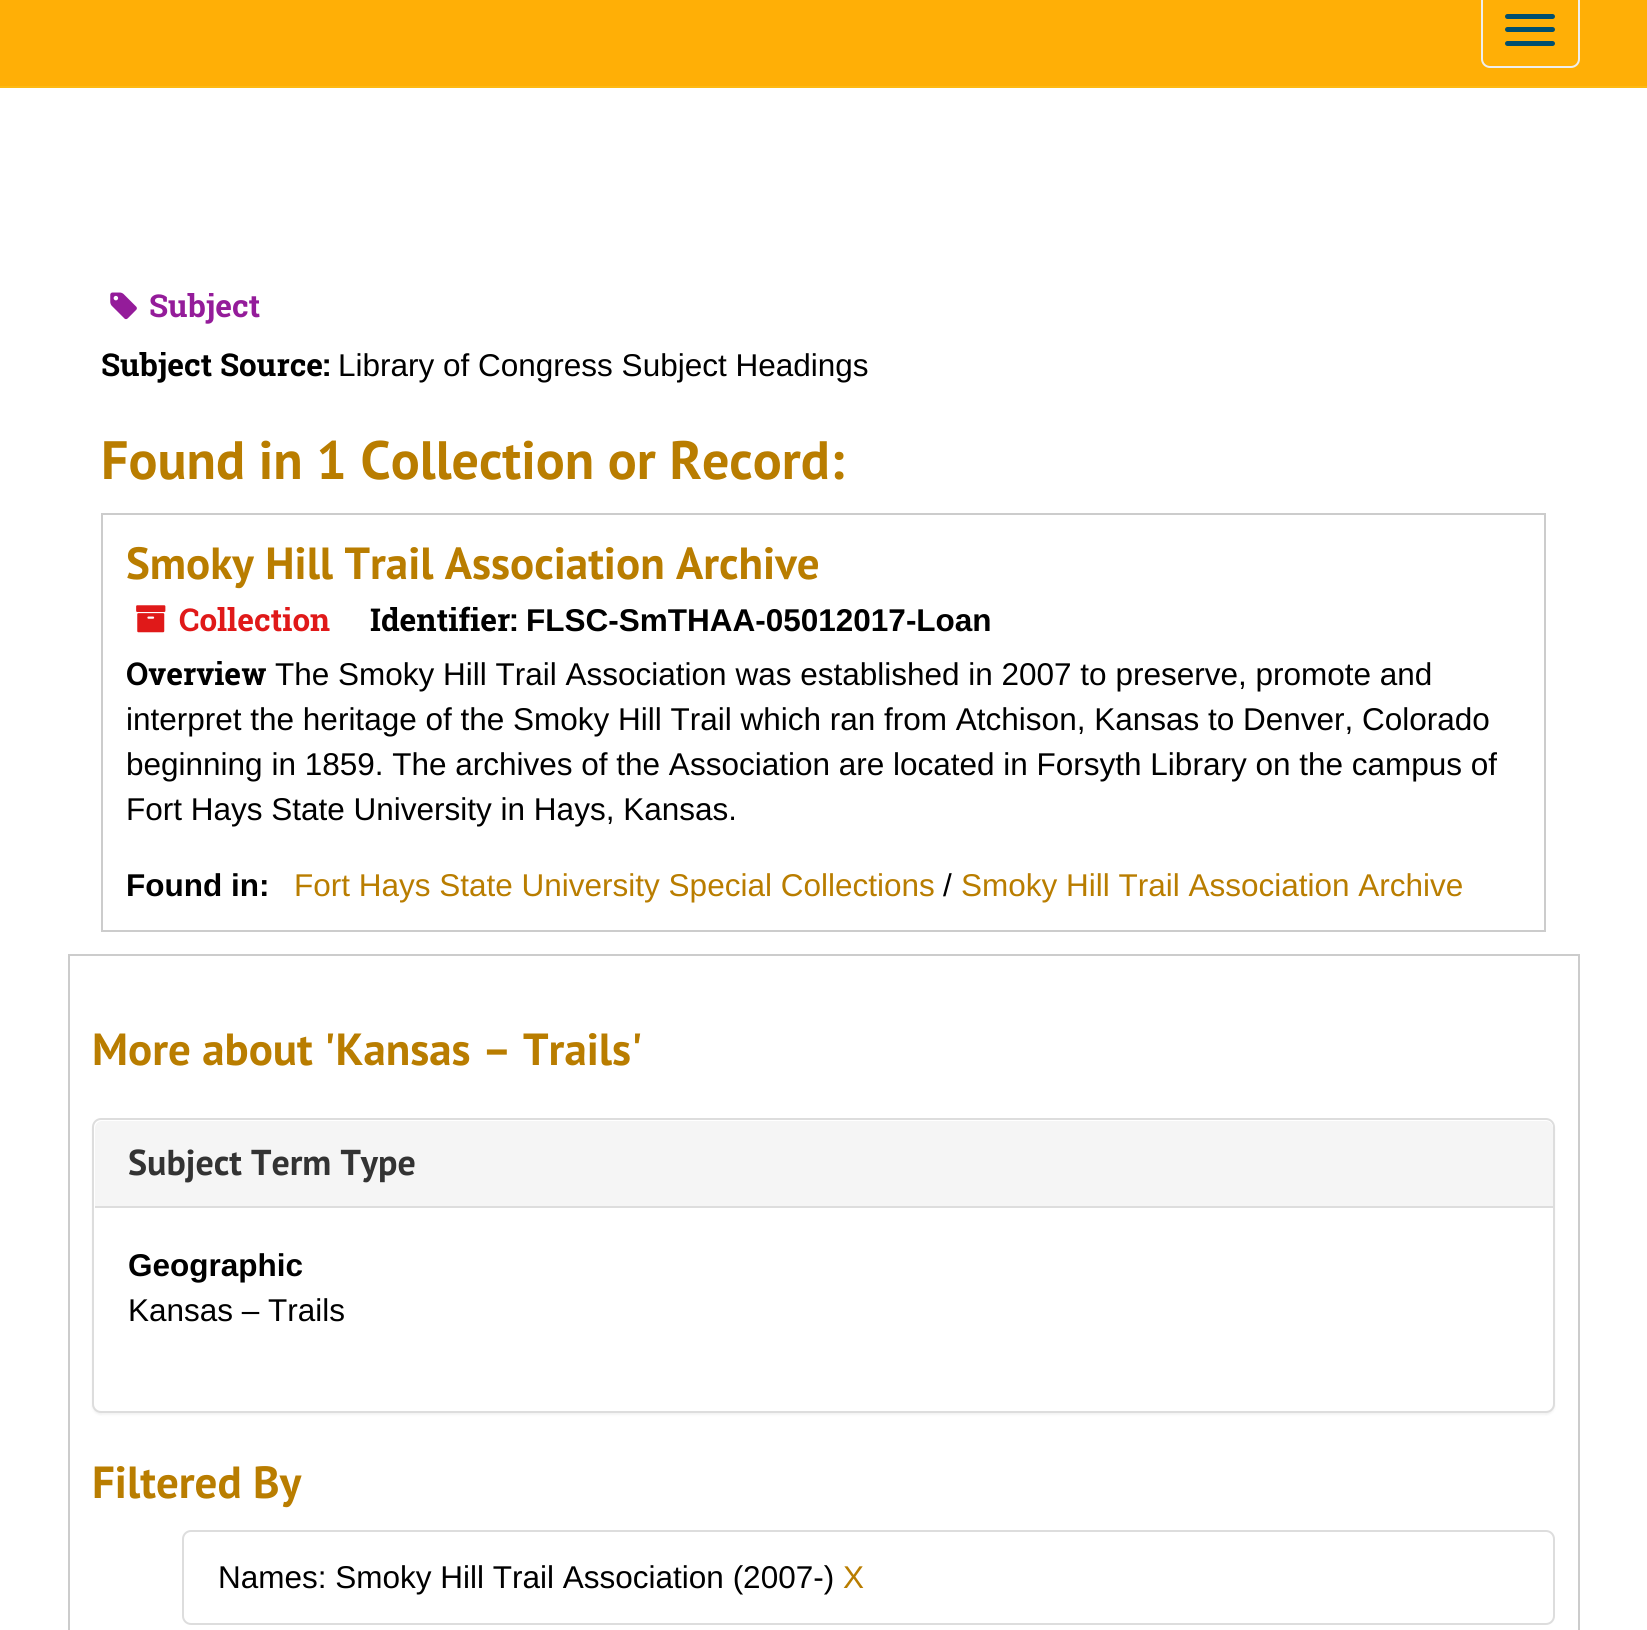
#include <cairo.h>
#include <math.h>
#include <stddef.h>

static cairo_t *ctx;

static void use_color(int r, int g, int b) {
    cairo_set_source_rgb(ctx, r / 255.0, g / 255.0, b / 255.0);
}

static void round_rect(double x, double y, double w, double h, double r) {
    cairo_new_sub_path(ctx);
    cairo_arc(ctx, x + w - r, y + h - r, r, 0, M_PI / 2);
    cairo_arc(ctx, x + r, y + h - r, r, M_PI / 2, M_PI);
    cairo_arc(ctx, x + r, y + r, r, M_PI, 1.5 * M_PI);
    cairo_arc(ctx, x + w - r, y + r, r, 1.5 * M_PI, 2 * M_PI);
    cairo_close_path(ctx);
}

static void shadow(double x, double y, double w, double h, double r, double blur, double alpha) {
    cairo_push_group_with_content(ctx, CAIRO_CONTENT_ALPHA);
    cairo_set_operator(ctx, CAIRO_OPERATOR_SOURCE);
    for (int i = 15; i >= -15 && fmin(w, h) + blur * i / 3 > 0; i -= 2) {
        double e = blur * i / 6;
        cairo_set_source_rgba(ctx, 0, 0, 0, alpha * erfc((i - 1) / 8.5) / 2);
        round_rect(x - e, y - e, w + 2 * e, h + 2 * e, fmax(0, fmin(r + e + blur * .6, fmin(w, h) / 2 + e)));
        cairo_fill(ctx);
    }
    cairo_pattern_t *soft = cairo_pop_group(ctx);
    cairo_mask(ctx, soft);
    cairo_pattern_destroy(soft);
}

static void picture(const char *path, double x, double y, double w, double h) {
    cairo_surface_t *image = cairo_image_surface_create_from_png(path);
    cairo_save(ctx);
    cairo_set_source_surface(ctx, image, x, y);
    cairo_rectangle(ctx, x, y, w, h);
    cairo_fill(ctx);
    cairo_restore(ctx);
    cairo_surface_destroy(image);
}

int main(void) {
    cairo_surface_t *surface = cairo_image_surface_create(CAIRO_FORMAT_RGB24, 1647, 1630);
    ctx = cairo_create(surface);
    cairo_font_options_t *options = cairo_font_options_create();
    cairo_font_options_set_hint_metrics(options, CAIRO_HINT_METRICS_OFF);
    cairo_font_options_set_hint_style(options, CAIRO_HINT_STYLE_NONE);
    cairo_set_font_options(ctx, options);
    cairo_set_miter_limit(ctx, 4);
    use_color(255, 255, 255);
    cairo_paint(ctx);
    use_color(255, 175, 6);
    cairo_rectangle(ctx, 0, 0, 1647, 86);
    cairo_fill(ctx);
    use_color(253, 185, 19);
    cairo_rectangle(ctx, 0, 86, 1647, 2);
    cairo_fill(ctx);
    round_rect(1482, -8, 97, 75, 8);
    use_color(238, 238, 238);
    cairo_stroke(ctx);
    use_color(0, 79, 111);
    round_rect(1505, 14, 50, 5, 2.5);
    cairo_fill(ctx);
    round_rect(1505, 27, 50, 5, 2.5);
    cairo_fill(ctx);
    round_rect(1505, 41, 50, 5, 2.5);
    cairo_fill(ctx);
    picture("img1.png", 110, 292, 27, 28);
    cairo_select_font_face(ctx, "Roboto Slab", CAIRO_FONT_SLANT_NORMAL, CAIRO_FONT_WEIGHT_BOLD);
    cairo_set_font_size(ctx, 31.5);
    use_color(148, 28, 154);
    cairo_move_to(ctx, 149, 317);
    cairo_show_text(ctx, "Subject");
    use_color(0, 0, 0);
    cairo_move_to(ctx, 101, 376);
    cairo_show_text(ctx, "Subject Source:");
    cairo_select_font_face(ctx, "Liberation Sans", CAIRO_FONT_SLANT_NORMAL, CAIRO_FONT_WEIGHT_NORMAL);
    cairo_move_to(ctx, 338, 376);
    cairo_show_text(ctx, "Library of Congress Subject Headings");
    cairo_select_font_face(ctx, "PT Sans", CAIRO_FONT_SLANT_NORMAL, CAIRO_FONT_WEIGHT_BOLD);
    cairo_set_font_size(ctx, 54);
    use_color(185, 125, 0);
    cairo_move_to(ctx, 101, 479);
    cairo_show_text(ctx, "Found in 1 Collection or Record:");
    cairo_rectangle(ctx, 102, 514, 1443, 417);
    use_color(204, 204, 204);
    cairo_stroke(ctx);
    cairo_set_font_size(ctx, 45);
    use_color(185, 125, 0);
    cairo_move_to(ctx, 126, 579);
    cairo_show_text(ctx, "Smoky Hill Trail Association Archive");
    picture("img2.png", 136, 605, 30, 28);
    cairo_select_font_face(ctx, "Roboto Slab", CAIRO_FONT_SLANT_NORMAL, CAIRO_FONT_WEIGHT_BOLD);
    cairo_set_font_size(ctx, 31.5);
    use_color(224, 25, 25);
    cairo_move_to(ctx, 179, 631);
    cairo_show_text(ctx, "Collection");
    use_color(0, 0, 0);
    cairo_move_to(ctx, 370, 631);
    cairo_show_text(ctx, "Identifier:");
    cairo_select_font_face(ctx, "Liberation Sans", CAIRO_FONT_SLANT_NORMAL, CAIRO_FONT_WEIGHT_BOLD);
    cairo_move_to(ctx, 526, 631);
    cairo_show_text(ctx, "FLSC-SmTHAA-05012017-Loan");
    cairo_select_font_face(ctx, "Roboto Slab", CAIRO_FONT_SLANT_NORMAL, CAIRO_FONT_WEIGHT_BOLD);
    cairo_move_to(ctx, 126, 685);
    cairo_show_text(ctx, "Overview");
    cairo_select_font_face(ctx, "Liberation Sans", CAIRO_FONT_SLANT_NORMAL, CAIRO_FONT_WEIGHT_NORMAL);
    cairo_move_to(ctx, 275, 685);
    cairo_show_text(ctx, "The Smoky Hill Trail Association was established in 2007 to preserve, promote and");
    cairo_move_to(ctx, 126, 730);
    cairo_show_text(ctx, "interpret the heritage of the Smoky Hill Trail which ran from Atchison, Kansas to Denver, Colorado");
    cairo_move_to(ctx, 126, 775);
    cairo_show_text(ctx, "beginning in 1859. The archives of the Association are located in Forsyth Library on the campus of");
    cairo_move_to(ctx, 126, 820);
    cairo_show_text(ctx, "Fort Hays State University in Hays, Kansas.");
    cairo_select_font_face(ctx, "Liberation Sans", CAIRO_FONT_SLANT_NORMAL, CAIRO_FONT_WEIGHT_BOLD);
    cairo_move_to(ctx, 126, 896);
    cairo_show_text(ctx, "Found in:");
    cairo_select_font_face(ctx, "Liberation Sans", CAIRO_FONT_SLANT_NORMAL, CAIRO_FONT_WEIGHT_NORMAL);
    use_color(185, 125, 0);
    cairo_move_to(ctx, 294, 896);
    cairo_show_text(ctx, "Fort Hays State University Special Collections");
    use_color(0, 0, 0);
    cairo_move_to(ctx, 943, 896);
    cairo_show_text(ctx, "/");
    use_color(185, 125, 0);
    cairo_move_to(ctx, 961, 896);
    cairo_show_text(ctx, "Smoky Hill Trail Association Archive");
    cairo_rectangle(ctx, 69, 955, 1510, 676);
    use_color(204, 204, 204);
    cairo_stroke(ctx);
    cairo_select_font_face(ctx, "PT Sans", CAIRO_FONT_SLANT_NORMAL, CAIRO_FONT_WEIGHT_BOLD);
    cairo_set_font_size(ctx, 45);
    use_color(185, 125, 0);
    cairo_move_to(ctx, 92, 1065);
    cairo_show_text(ctx, "More about 'Kansas – Trails'");
    use_color(0, 0, 0);
    shadow(92, 1121, 1463, 294, 9, 1, 0.05);
    use_color(255, 255, 255);
    round_rect(93, 1119, 1461, 293, 8);
    cairo_fill_preserve(ctx);
    use_color(221, 221, 221);
    cairo_stroke(ctx);
    use_color(245, 245, 245);
    cairo_new_path(ctx);
    cairo_move_to(ctx, 102, 1121);
    cairo_line_to(ctx, 1546, 1121);
    cairo_curve_to(ctx, 1550, 1121, 1553, 1124, 1553, 1128);
    cairo_line_to(ctx, 1553, 1206);
    cairo_line_to(ctx, 95, 1206);
    cairo_line_to(ctx, 95, 1128);
    cairo_curve_to(ctx, 95, 1124, 98, 1121, 102, 1121);
    cairo_close_path(ctx);
    cairo_fill(ctx);
    cairo_set_font_size(ctx, 36);
    use_color(51, 51, 51);
    cairo_move_to(ctx, 128, 1175);
    cairo_show_text(ctx, "Subject Term Type");
    use_color(221, 221, 221);
    cairo_rectangle(ctx, 95, 1206, 1458, 2);
    cairo_fill(ctx);
    cairo_select_font_face(ctx, "Liberation Sans", CAIRO_FONT_SLANT_NORMAL, CAIRO_FONT_WEIGHT_BOLD);
    cairo_set_font_size(ctx, 31.5);
    use_color(0, 0, 0);
    cairo_move_to(ctx, 128, 1276);
    cairo_show_text(ctx, "Geographic");
    cairo_select_font_face(ctx, "Liberation Sans", CAIRO_FONT_SLANT_NORMAL, CAIRO_FONT_WEIGHT_NORMAL);
    cairo_move_to(ctx, 128, 1321);
    cairo_show_text(ctx, "Kansas – Trails");
    cairo_select_font_face(ctx, "PT Sans", CAIRO_FONT_SLANT_NORMAL, CAIRO_FONT_WEIGHT_BOLD);
    cairo_set_font_size(ctx, 45);
    use_color(185, 125, 0);
    cairo_move_to(ctx, 92, 1498);
    cairo_show_text(ctx, "Filtered By");
    round_rect(183, 1531, 1371, 93, 8);
    use_color(221, 221, 221);
    cairo_stroke(ctx);
    cairo_select_font_face(ctx, "Liberation Sans", CAIRO_FONT_SLANT_NORMAL, CAIRO_FONT_WEIGHT_NORMAL);
    cairo_set_font_size(ctx, 31.5);
    use_color(0, 0, 0);
    cairo_move_to(ctx, 218, 1588);
    cairo_show_text(ctx, "Names: Smoky Hill Trail Association (2007-)");
    use_color(185, 125, 0);
    cairo_move_to(ctx, 843, 1588);
    cairo_show_text(ctx, "X");
    cairo_surface_write_to_png(surface, "result.png");
    cairo_font_options_destroy(options);
    cairo_destroy(ctx);
    cairo_surface_destroy(surface);
    return 0;
}
